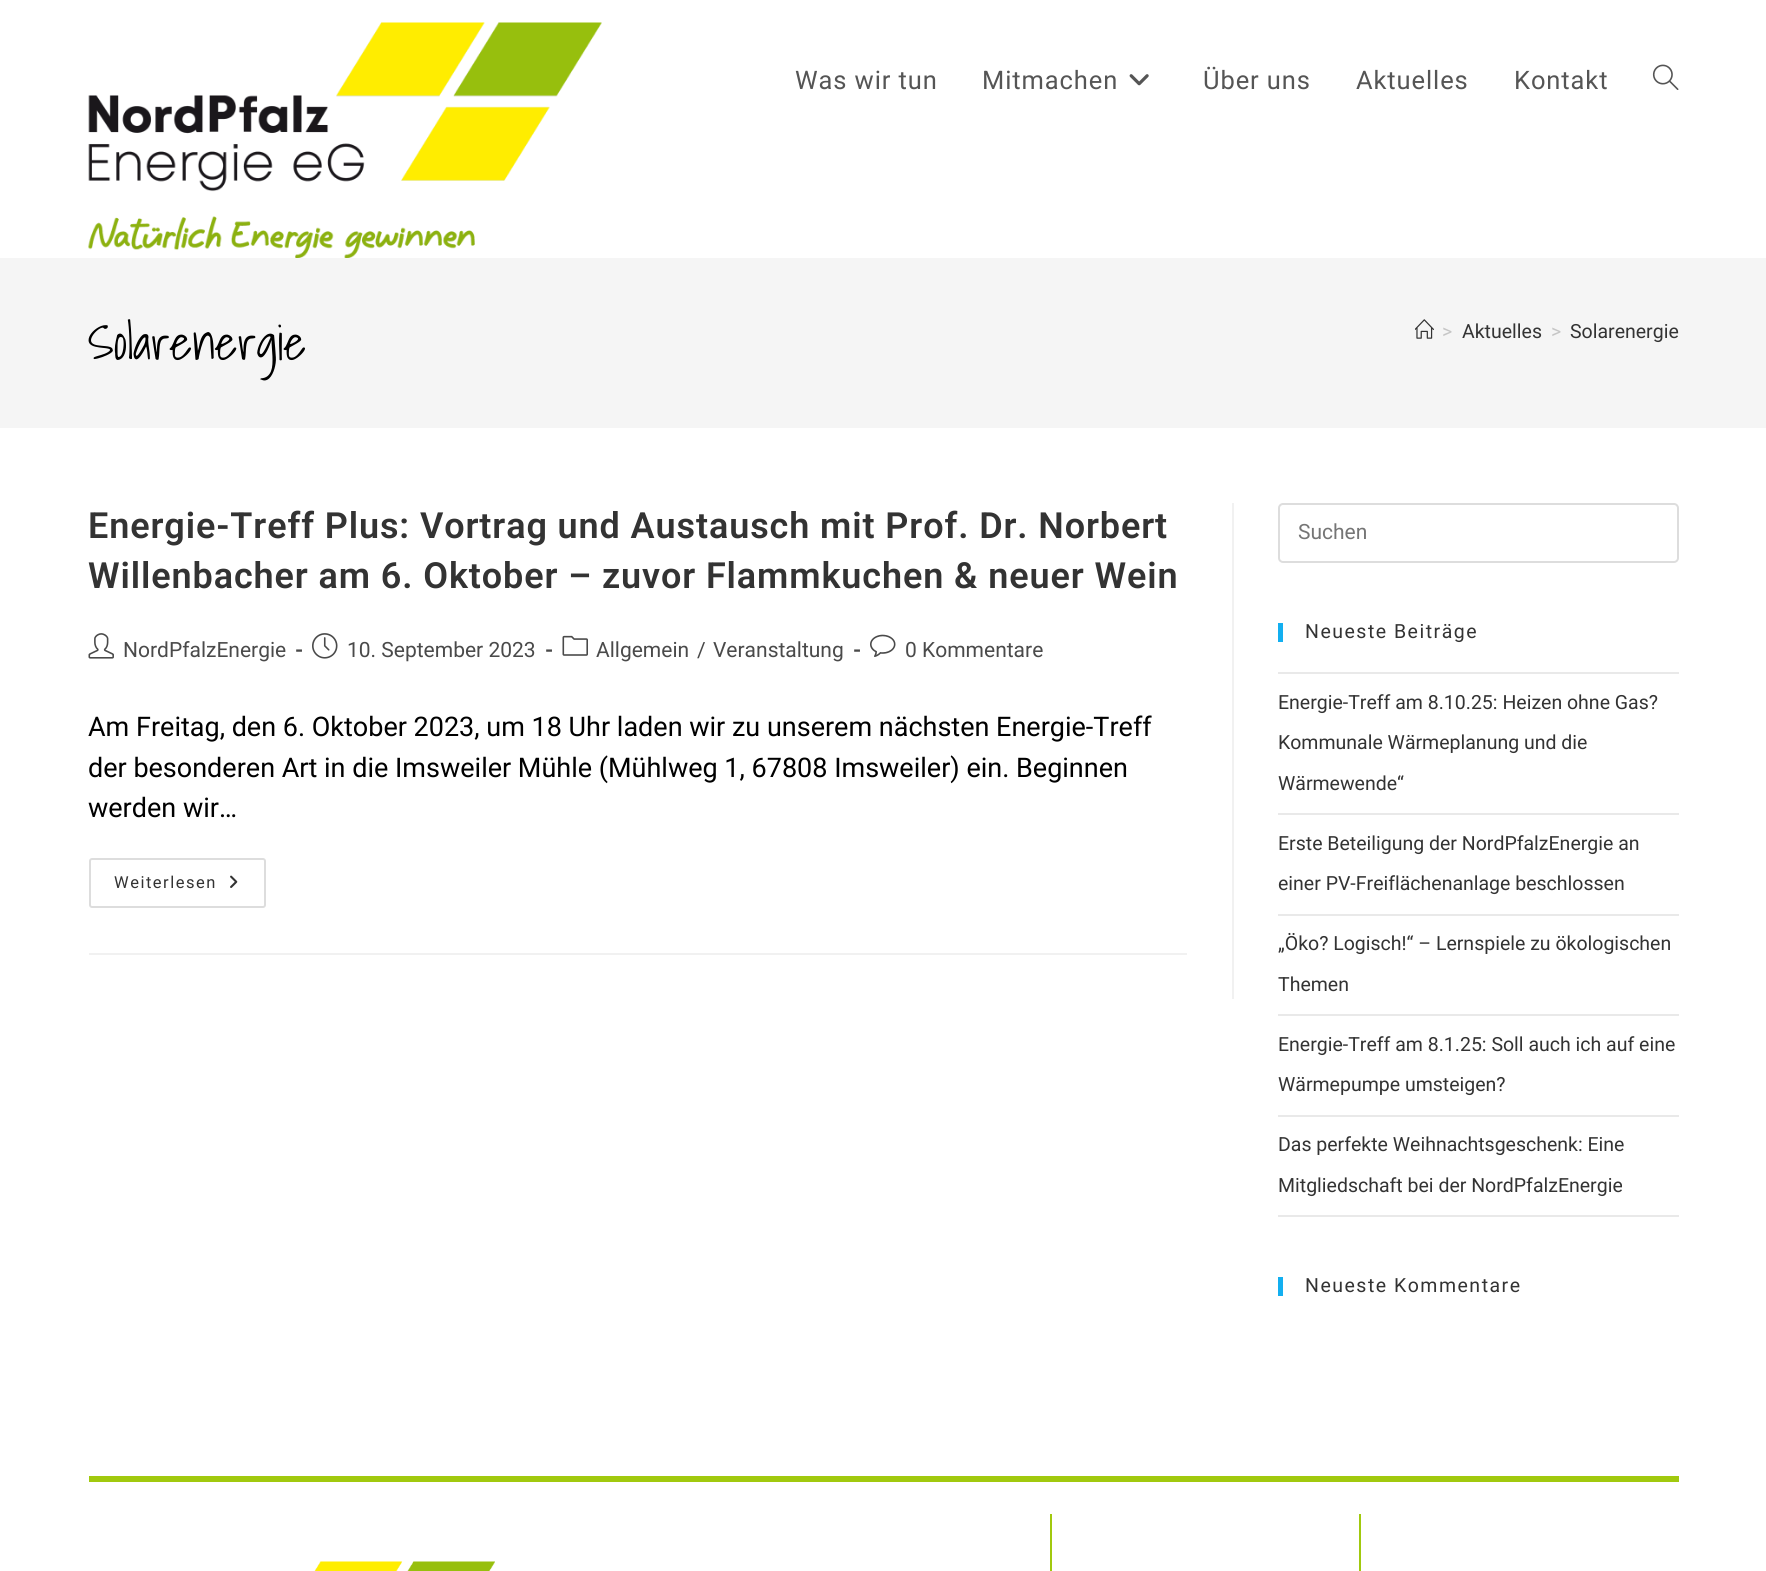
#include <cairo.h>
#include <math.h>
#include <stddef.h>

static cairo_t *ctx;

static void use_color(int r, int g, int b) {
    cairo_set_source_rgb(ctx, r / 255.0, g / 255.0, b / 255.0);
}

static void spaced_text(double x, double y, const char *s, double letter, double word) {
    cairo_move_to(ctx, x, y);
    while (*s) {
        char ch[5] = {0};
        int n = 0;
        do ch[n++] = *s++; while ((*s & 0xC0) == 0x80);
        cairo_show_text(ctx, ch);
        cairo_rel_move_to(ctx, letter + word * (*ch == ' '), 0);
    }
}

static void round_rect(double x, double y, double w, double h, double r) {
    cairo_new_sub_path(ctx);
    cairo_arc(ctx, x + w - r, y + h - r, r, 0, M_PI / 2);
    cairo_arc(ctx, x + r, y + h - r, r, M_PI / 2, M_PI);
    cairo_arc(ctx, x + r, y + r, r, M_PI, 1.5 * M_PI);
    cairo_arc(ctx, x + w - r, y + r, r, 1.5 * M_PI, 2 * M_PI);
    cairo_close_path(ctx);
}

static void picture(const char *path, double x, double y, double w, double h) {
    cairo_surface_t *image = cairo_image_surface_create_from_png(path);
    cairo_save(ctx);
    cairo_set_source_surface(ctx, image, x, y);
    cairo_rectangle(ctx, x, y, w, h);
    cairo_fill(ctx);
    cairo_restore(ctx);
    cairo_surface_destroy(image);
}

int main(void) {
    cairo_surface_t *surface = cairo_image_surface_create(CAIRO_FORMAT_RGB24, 1766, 1571);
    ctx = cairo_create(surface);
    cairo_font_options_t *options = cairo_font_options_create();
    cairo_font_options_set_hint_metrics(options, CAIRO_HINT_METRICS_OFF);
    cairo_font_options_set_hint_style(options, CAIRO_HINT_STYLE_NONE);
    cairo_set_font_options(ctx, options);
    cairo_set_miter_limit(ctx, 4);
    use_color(255, 255, 255);
    cairo_paint(ctx);
    picture("img1.png", 88, 22, 514, 236);
    cairo_select_font_face(ctx, "Roboto", CAIRO_FONT_SLANT_NORMAL, CAIRO_FONT_WEIGHT_NORMAL);
    cairo_set_font_size(ctx, 25.5);
    use_color(85, 85, 85);
    spaced_text(795, 89, "Was wir tun", 0.9, 0);
    spaced_text(982, 89, "Mitmachen", 0.9, 0);
    picture("img2.png", 1129, 74, 20, 12);
    spaced_text(1203, 89, "Über uns", 0.9, 0);
    spaced_text(1356, 89, "Aktuelles", 0.9, 0);
    spaced_text(1514, 89, "Kontakt", 0.9, 0);
    picture("img3.png", 1652, 64, 27, 26);
    use_color(245, 245, 245);
    cairo_rectangle(ctx, 0, 258, 1766, 170);
    cairo_fill(ctx);
    cairo_select_font_face(ctx, "Shadows Into Light Light", CAIRO_FONT_SLANT_NORMAL, CAIRO_FONT_WEIGHT_NORMAL);
    cairo_set_font_size(ctx, 48);
    use_color(0, 0, 0);
    cairo_move_to(ctx, 88, 360);
    cairo_show_text(ctx, "Solarenergie");
    picture("img4.png", 1415, 319, 19, 20);
    cairo_select_font_face(ctx, "Roboto", CAIRO_FONT_SLANT_NORMAL, CAIRO_FONT_WEIGHT_NORMAL);
    cairo_set_font_size(ctx, 19.5);
    use_color(198, 198, 198);
    cairo_move_to(ctx, 1442, 338);
    cairo_show_text(ctx, ">");
    use_color(51, 51, 51);
    cairo_move_to(ctx, 1462, 338);
    cairo_show_text(ctx, "Aktuelles");
    use_color(198, 198, 198);
    cairo_move_to(ctx, 1551, 338);
    cairo_show_text(ctx, ">");
    use_color(51, 51, 51);
    cairo_move_to(ctx, 1570, 338);
    cairo_show_text(ctx, "Solarenergie");
    use_color(241, 241, 241);
    cairo_rectangle(ctx, 1232, 503, 2, 496);
    cairo_fill(ctx);
    cairo_rectangle(ctx, 89, 953, 1098, 2);
    cairo_fill(ctx);
    cairo_select_font_face(ctx, "Roboto SemiBold", CAIRO_FONT_SLANT_NORMAL, CAIRO_FONT_WEIGHT_NORMAL);
    cairo_set_font_size(ctx, 36);
    use_color(51, 51, 51);
    spaced_text(88, 538, "Energie-Treff Plus: Vortrag und Austausch mit Prof. Dr. Norbert", 0.9, 0);
    spaced_text(88, 588, "Willenbacher am 6. Oktober – zuvor Flammkuchen & neuer Wein", 0.9, 0);
    picture("img5.png", 88, 633, 26, 26);
    cairo_select_font_face(ctx, "Roboto", CAIRO_FONT_SLANT_NORMAL, CAIRO_FONT_WEIGHT_NORMAL);
    cairo_set_font_size(ctx, 21);
    use_color(74, 74, 74);
    cairo_move_to(ctx, 123, 657);
    cairo_show_text(ctx, "NordPfalzEnergie");
    cairo_select_font_face(ctx, "Roboto", CAIRO_FONT_SLANT_NORMAL, CAIRO_FONT_WEIGHT_BOLD);
    cairo_move_to(ctx, 295, 657);
    cairo_show_text(ctx, "-");
    picture("img6.png", 312, 633, 26, 26);
    cairo_select_font_face(ctx, "Roboto", CAIRO_FONT_SLANT_NORMAL, CAIRO_FONT_WEIGHT_NORMAL);
    cairo_move_to(ctx, 347, 657);
    cairo_show_text(ctx, "10. September 2023");
    cairo_select_font_face(ctx, "Roboto", CAIRO_FONT_SLANT_NORMAL, CAIRO_FONT_WEIGHT_BOLD);
    cairo_move_to(ctx, 545, 657);
    cairo_show_text(ctx, "-");
    picture("img7.png", 562, 635, 26, 21);
    cairo_select_font_face(ctx, "Roboto", CAIRO_FONT_SLANT_NORMAL, CAIRO_FONT_WEIGHT_NORMAL);
    cairo_move_to(ctx, 596, 657);
    cairo_show_text(ctx, "Allgemein");
    cairo_move_to(ctx, 697, 657);
    cairo_show_text(ctx, "/");
    cairo_move_to(ctx, 713, 657);
    cairo_show_text(ctx, "Veranstaltung");
    cairo_select_font_face(ctx, "Roboto", CAIRO_FONT_SLANT_NORMAL, CAIRO_FONT_WEIGHT_BOLD);
    cairo_move_to(ctx, 853, 657);
    cairo_show_text(ctx, "-");
    picture("img8.png", 870, 634, 26, 23);
    cairo_select_font_face(ctx, "Roboto", CAIRO_FONT_SLANT_NORMAL, CAIRO_FONT_WEIGHT_NORMAL);
    cairo_move_to(ctx, 905, 657);
    cairo_show_text(ctx, "0 Kommentare");
    cairo_set_font_size(ctx, 27);
    use_color(0, 0, 0);
    cairo_move_to(ctx, 88, 736);
    cairo_show_text(ctx, "Am Freitag, den 6. Oktober 2023, um 18 Uhr laden wir zu unserem nächsten Energie-Treff");
    cairo_move_to(ctx, 88, 777);
    cairo_show_text(ctx, "der besonderen Art in die Imsweiler Mühle (Mühlweg 1, 67808 Imsweiler) ein. Beginnen");
    cairo_move_to(ctx, 88, 817);
    cairo_show_text(ctx, "werden wir…");
    round_rect(90, 859, 175, 48, 2);
    use_color(221, 221, 221);
    cairo_stroke(ctx);
    cairo_set_font_size(ctx, 16.5);
    use_color(51, 51, 51);
    spaced_text(114, 888, "Weiterlesen", 1.5, 0);
    picture("img9.png", 230, 875, 8, 13);
    round_rect(1279, 504, 399, 58, 4);
    use_color(221, 221, 221);
    cairo_stroke(ctx);
    cairo_set_font_size(ctx, 21);
    use_color(117, 117, 117);
    cairo_move_to(ctx, 1298, 539);
    cairo_show_text(ctx, "Suchen");
    use_color(19, 175, 240);
    cairo_rectangle(ctx, 1278, 623, 5, 19);
    cairo_fill(ctx);
    cairo_set_font_size(ctx, 19.5);
    use_color(51, 51, 51);
    spaced_text(1305, 638, "Neueste Beiträge", 1.5, 0);
    use_color(233, 233, 233);
    cairo_rectangle(ctx, 1278, 672, 401, 2);
    cairo_fill(ctx);
    cairo_rectangle(ctx, 1278, 813, 401, 2);
    cairo_fill(ctx);
    use_color(51, 51, 51);
    cairo_move_to(ctx, 1278, 709);
    cairo_show_text(ctx, "Energie-Treff am 8.10.25: Heizen ohne Gas?");
    cairo_move_to(ctx, 1278, 749);
    cairo_show_text(ctx, "Kommunale Wärmeplanung und die");
    cairo_move_to(ctx, 1278, 790);
    cairo_show_text(ctx, "Wärmewende“");
    use_color(233, 233, 233);
    cairo_rectangle(ctx, 1278, 914, 401, 2);
    cairo_fill(ctx);
    use_color(51, 51, 51);
    cairo_move_to(ctx, 1278, 850);
    cairo_show_text(ctx, "Erste Beteiligung der NordPfalzEnergie an");
    cairo_move_to(ctx, 1278, 890);
    cairo_show_text(ctx, "einer PV-Freiflächenanlage beschlossen");
    use_color(233, 233, 233);
    cairo_rectangle(ctx, 1278, 1014, 401, 2);
    cairo_fill(ctx);
    use_color(51, 51, 51);
    cairo_move_to(ctx, 1278, 950);
    cairo_show_text(ctx, "„Öko? Logisch!“ – Lernspiele zu ökologischen");
    cairo_move_to(ctx, 1278, 991);
    cairo_show_text(ctx, "Themen");
    use_color(233, 233, 233);
    cairo_rectangle(ctx, 1278, 1115, 401, 2);
    cairo_fill(ctx);
    use_color(51, 51, 51);
    cairo_move_to(ctx, 1278, 1051);
    cairo_show_text(ctx, "Energie-Treff am 8.1.25: Soll auch ich auf eine");
    cairo_move_to(ctx, 1278, 1091);
    cairo_show_text(ctx, "Wärmepumpe umsteigen?");
    use_color(233, 233, 233);
    cairo_rectangle(ctx, 1278, 1215, 401, 2);
    cairo_fill(ctx);
    use_color(51, 51, 51);
    cairo_move_to(ctx, 1278, 1151);
    cairo_show_text(ctx, "Das perfekte Weihnachtsgeschenk: Eine");
    cairo_move_to(ctx, 1278, 1192);
    cairo_show_text(ctx, "Mitgliedschaft bei der NordPfalzEnergie");
    use_color(19, 175, 240);
    cairo_rectangle(ctx, 1278, 1277, 5, 19);
    cairo_fill(ctx);
    use_color(51, 51, 51);
    spaced_text(1305, 1292, "Neueste Kommentare", 1.5, 0);
    use_color(161, 201, 14);
    cairo_rectangle(ctx, 89, 1476, 1590, 6);
    cairo_fill(ctx);
    picture("img10.png", 314, 1561, 181, 10);
    cairo_rectangle(ctx, 1050, 1514, 2, 57);
    cairo_fill(ctx);
    cairo_rectangle(ctx, 1359, 1514, 2, 57);
    cairo_fill(ctx);
    cairo_surface_write_to_png(surface, "result.png");
    cairo_font_options_destroy(options);
    cairo_destroy(ctx);
    cairo_surface_destroy(surface);
    return 0;
}
